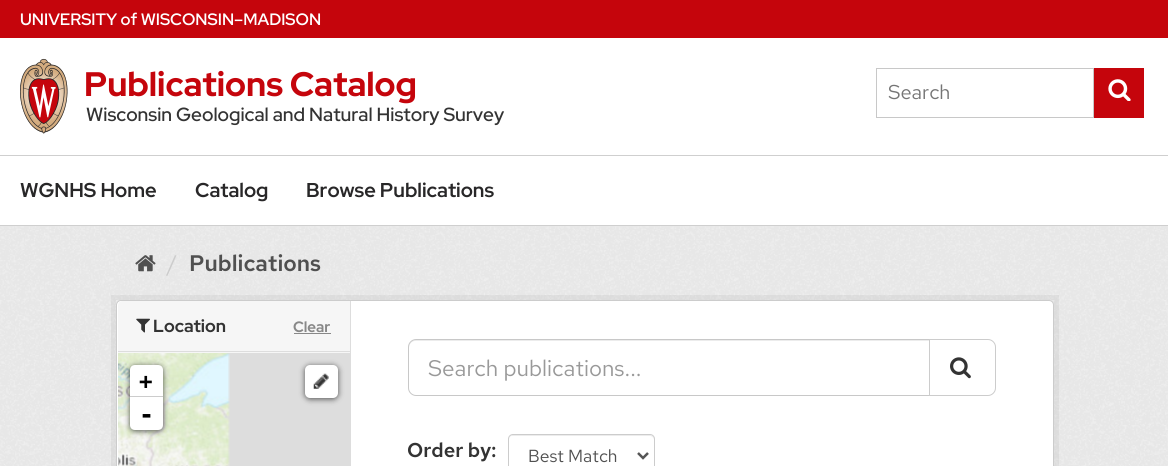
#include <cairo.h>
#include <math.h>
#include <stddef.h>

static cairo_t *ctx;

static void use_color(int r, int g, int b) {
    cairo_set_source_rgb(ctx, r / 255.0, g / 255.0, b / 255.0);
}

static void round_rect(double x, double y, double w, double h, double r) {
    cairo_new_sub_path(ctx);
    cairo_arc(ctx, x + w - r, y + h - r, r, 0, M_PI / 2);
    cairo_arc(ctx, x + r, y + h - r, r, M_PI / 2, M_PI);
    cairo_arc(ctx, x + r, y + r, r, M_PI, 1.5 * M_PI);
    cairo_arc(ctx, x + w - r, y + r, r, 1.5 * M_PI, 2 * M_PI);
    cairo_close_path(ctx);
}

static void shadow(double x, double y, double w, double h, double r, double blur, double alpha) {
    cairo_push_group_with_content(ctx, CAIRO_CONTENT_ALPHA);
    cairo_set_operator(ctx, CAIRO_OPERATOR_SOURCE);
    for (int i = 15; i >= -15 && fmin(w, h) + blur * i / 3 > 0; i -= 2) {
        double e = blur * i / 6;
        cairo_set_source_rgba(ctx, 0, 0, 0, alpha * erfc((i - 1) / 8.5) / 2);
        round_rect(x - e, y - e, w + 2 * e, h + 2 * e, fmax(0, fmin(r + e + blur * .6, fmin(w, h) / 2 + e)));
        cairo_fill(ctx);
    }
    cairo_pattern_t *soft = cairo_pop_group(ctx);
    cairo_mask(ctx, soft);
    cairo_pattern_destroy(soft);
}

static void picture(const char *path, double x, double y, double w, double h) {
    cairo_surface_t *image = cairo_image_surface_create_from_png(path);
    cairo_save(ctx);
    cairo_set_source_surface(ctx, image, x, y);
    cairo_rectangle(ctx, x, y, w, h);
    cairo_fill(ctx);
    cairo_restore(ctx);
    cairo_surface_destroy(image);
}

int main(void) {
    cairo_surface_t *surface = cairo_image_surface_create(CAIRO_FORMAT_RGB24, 1168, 466);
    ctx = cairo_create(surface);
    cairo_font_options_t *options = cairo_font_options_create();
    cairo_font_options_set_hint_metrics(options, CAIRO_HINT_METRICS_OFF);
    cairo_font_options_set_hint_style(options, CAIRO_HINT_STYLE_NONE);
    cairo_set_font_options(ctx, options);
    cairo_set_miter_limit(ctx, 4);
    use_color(197, 5, 12);
    cairo_paint(ctx);
    cairo_select_font_face(ctx, "Red Hat Display SemiBold", CAIRO_FONT_SLANT_NORMAL, CAIRO_FONT_WEIGHT_NORMAL);
    cairo_set_font_size(ctx, 16.5);
    use_color(255, 255, 255);
    cairo_move_to(ctx, 20, 25);
    cairo_show_text(ctx, "UNIVERSITY of WISCONSIN–MADISON");
    cairo_rectangle(ctx, 0, 38, 1168, 117);
    cairo_fill(ctx);
    picture("img1.png", 20, 58, 48, 76);
    cairo_select_font_face(ctx, "Red Hat Display ExtraBold", CAIRO_FONT_SLANT_NORMAL, CAIRO_FONT_WEIGHT_NORMAL);
    cairo_set_font_size(ctx, 34);
    use_color(197, 5, 12);
    cairo_move_to(ctx, 84, 96);
    cairo_show_text(ctx, "Publications Catalog");
    cairo_select_font_face(ctx, "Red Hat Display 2 SemiBold", CAIRO_FONT_SLANT_NORMAL, CAIRO_FONT_WEIGHT_NORMAL);
    cairo_set_font_size(ctx, 19);
    use_color(51, 51, 51);
    cairo_move_to(ctx, 86, 121);
    cairo_show_text(ctx, "Wisconsin Geological and Natural History Survey");
    cairo_rectangle(ctx, 876.5, 68.5, 217, 49);
    use_color(200, 200, 200);
    cairo_set_line_width(ctx, 1);
    cairo_stroke(ctx);
    cairo_select_font_face(ctx, "Red Hat Text", CAIRO_FONT_SLANT_NORMAL, CAIRO_FONT_WEIGHT_NORMAL);
    cairo_set_font_size(ctx, 20);
    use_color(117, 117, 117);
    cairo_move_to(ctx, 888, 99);
    cairo_show_text(ctx, "Search");
    use_color(197, 5, 12);
    cairo_rectangle(ctx, 1094, 68, 50, 50);
    cairo_fill(ctx);
    picture("img2.png", 1108, 79, 23, 22);
    use_color(255, 255, 255);
    cairo_rectangle(ctx, 0, 156, 1168, 69);
    cairo_fill(ctx);
    use_color(207, 207, 207);
    cairo_rectangle(ctx, 0, 155, 1168, 1);
    cairo_fill(ctx);
    cairo_rectangle(ctx, 0, 225, 1168, 1);
    cairo_fill(ctx);
    cairo_select_font_face(ctx, "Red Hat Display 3 SemiBold", CAIRO_FONT_SLANT_NORMAL, CAIRO_FONT_WEIGHT_NORMAL);
    use_color(40, 39, 40);
    cairo_move_to(ctx, 20, 197);
    cairo_show_text(ctx, "WGNHS Home");
    cairo_move_to(ctx, 195, 197);
    cairo_show_text(ctx, "Catalog");
    cairo_move_to(ctx, 306, 197);
    cairo_show_text(ctx, "Browse Publications");
    use_color(238, 238, 238);
    cairo_rectangle(ctx, 0, 226, 1168, 240);
    cairo_fill(ctx);
    picture("img3.png", 0, 226, 1168, 240);
    picture("img4.png", 135, 255, 21, 17);
    cairo_select_font_face(ctx, "Red Hat Text", CAIRO_FONT_SLANT_NORMAL, CAIRO_FONT_WEIGHT_NORMAL);
    cairo_set_font_size(ctx, 22.5);
    use_color(204, 204, 204);
    cairo_move_to(ctx, 167, 271);
    cairo_show_text(ctx, "/");
    cairo_select_font_face(ctx, "Red Hat Text SemiBold", CAIRO_FONT_SLANT_NORMAL, CAIRO_FONT_WEIGHT_NORMAL);
    use_color(80, 80, 80);
    cairo_move_to(ctx, 189, 271);
    cairo_show_text(ctx, "Publications");
    cairo_rectangle(ctx, 113.5, 297.5, 943, 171);
    cairo_set_source_rgba(ctx, 0, 0, 0, 0.05);
    cairo_set_line_width(ctx, 5);
    cairo_stroke(ctx);
    use_color(255, 255, 255);
    round_rect(116.5, 300.5, 937, 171, 4.5);
    cairo_fill_preserve(ctx);
    use_color(204, 204, 204);
    cairo_set_line_width(ctx, 1);
    cairo_stroke(ctx);
    use_color(246, 246, 246);
    cairo_new_path(ctx);
    cairo_move_to(ctx, 122, 301);
    cairo_line_to(ctx, 350, 301);
    cairo_line_to(ctx, 350, 353);
    cairo_line_to(ctx, 118, 353);
    cairo_line_to(ctx, 118, 305);
    cairo_curve_to(ctx, 118, 303, 120, 301, 122, 301);
    cairo_close_path(ctx);
    cairo_fill(ctx);
    use_color(221, 221, 221);
    cairo_rectangle(ctx, 118, 351, 232, 1);
    cairo_fill(ctx);
    picture("img5.png", 136, 318, 14, 15);
    cairo_select_font_face(ctx, "Red Hat Display", CAIRO_FONT_SLANT_NORMAL, CAIRO_FONT_WEIGHT_BOLD);
    cairo_set_font_size(ctx, 17.5);
    use_color(51, 51, 51);
    cairo_move_to(ctx, 153, 332);
    cairo_show_text(ctx, "Location");
    cairo_set_font_size(ctx, 15);
    use_color(136, 136, 136);
    cairo_move_to(ctx, 293, 332);
    cairo_show_text(ctx, "Clear");
    cairo_rectangle(ctx, 294, 333, 37, 1);
    cairo_fill(ctx);
    use_color(221, 221, 221);
    cairo_rectangle(ctx, 228, 353, 122, 113);
    cairo_fill(ctx);
    picture("img6.png", 118, 353, 112, 113);
    use_color(0, 0, 0);
    shadow(130, 366, 33, 65, 5, 3, 0.65);
    use_color(255, 255, 255);
    cairo_new_path(ctx);
    cairo_move_to(ctx, 135, 365);
    cairo_line_to(ctx, 158, 365);
    cairo_curve_to(ctx, 161, 365, 163, 367, 163, 370);
    cairo_line_to(ctx, 163, 398);
    cairo_line_to(ctx, 130, 398);
    cairo_line_to(ctx, 130, 370);
    cairo_curve_to(ctx, 130, 367, 132, 365, 135, 365);
    cairo_close_path(ctx);
    cairo_fill(ctx);
    use_color(204, 204, 204);
    cairo_rectangle(ctx, 130, 396, 33, 1);
    cairo_fill(ctx);
    cairo_select_font_face(ctx, "DejaVu Sans Mono", CAIRO_FONT_SLANT_NORMAL, CAIRO_FONT_WEIGHT_BOLD);
    cairo_set_font_size(ctx, 22.5);
    use_color(0, 0, 0);
    cairo_move_to(ctx, 139, 389);
    cairo_show_text(ctx, "+");
    use_color(255, 255, 255);
    cairo_new_path(ctx);
    cairo_move_to(ctx, 130, 398);
    cairo_line_to(ctx, 163, 398);
    cairo_line_to(ctx, 163, 425);
    cairo_curve_to(ctx, 163, 428, 161, 430, 158, 430);
    cairo_line_to(ctx, 135, 430);
    cairo_curve_to(ctx, 132, 430, 130, 428, 130, 425);
    cairo_close_path(ctx);
    cairo_fill(ctx);
    cairo_set_font_size(ctx, 25);
    use_color(0, 0, 0);
    cairo_move_to(ctx, 139, 423);
    cairo_show_text(ctx, "-");
    use_color(0, 0, 0);
    shadow(305, 366, 33, 33, 5, 3, 0.65);
    use_color(255, 255, 255);
    round_rect(305, 365, 33, 33, 5);
    cairo_fill(ctx);
    picture("img7.png", 313, 373, 16, 16);
    use_color(221, 221, 221);
    cairo_rectangle(ctx, 350, 301, 1, 165);
    cairo_fill(ctx);
    use_color(236, 236, 236);
    cairo_new_path(ctx);
    cairo_move_to(ctx, 415, 341);
    cairo_line_to(ctx, 929, 341);
    cairo_line_to(ctx, 929, 340);
    cairo_line_to(ctx, 415, 340);
    cairo_curve_to(ctx, 412, 340, 409, 343, 409, 346);
    cairo_line_to(ctx, 409, 348);
    cairo_curve_to(ctx, 409, 344, 412, 341, 415, 341);
    cairo_close_path(ctx);
    cairo_fill(ctx);
    cairo_new_path(ctx);
    cairo_move_to(ctx, 416, 339.5);
    cairo_line_to(ctx, 929.5, 339.5);
    cairo_line_to(ctx, 929.5, 395.5);
    cairo_line_to(ctx, 416, 395.5);
    cairo_curve_to(ctx, 412, 395.5, 408.5, 392, 408.5, 388);
    cairo_line_to(ctx, 408.5, 347);
    cairo_curve_to(ctx, 408.5, 343, 412, 339.5, 416, 339.5);
    cairo_close_path(ctx);
    use_color(200, 200, 200);
    cairo_stroke(ctx);
    cairo_select_font_face(ctx, "Red Hat Text", CAIRO_FONT_SLANT_NORMAL, CAIRO_FONT_WEIGHT_NORMAL);
    cairo_set_font_size(ctx, 22.5);
    use_color(153, 153, 153);
    cairo_move_to(ctx, 428, 376);
    cairo_show_text(ctx, "Search publications...");
    use_color(255, 255, 255);
    cairo_new_path(ctx);
    cairo_move_to(ctx, 929.5, 339.5);
    cairo_line_to(ctx, 988, 339.5);
    cairo_curve_to(ctx, 992, 339.5, 995.5, 343, 995.5, 347);
    cairo_line_to(ctx, 995.5, 388);
    cairo_curve_to(ctx, 995.5, 392, 992, 395.5, 988, 395.5);
    cairo_line_to(ctx, 929.5, 395.5);
    cairo_close_path(ctx);
    cairo_fill_preserve(ctx);
    use_color(204, 204, 204);
    cairo_stroke(ctx);
    picture("img8.png", 950, 357, 21, 22);
    cairo_select_font_face(ctx, "Red Hat Text SemiBold", CAIRO_FONT_SLANT_NORMAL, CAIRO_FONT_WEIGHT_NORMAL);
    cairo_set_font_size(ctx, 20);
    use_color(51, 51, 51);
    cairo_move_to(ctx, 407, 457);
    cairo_show_text(ctx, "Order by:");
    use_color(236, 236, 236);
    cairo_new_path(ctx);
    cairo_move_to(ctx, 512, 436);
    cairo_line_to(ctx, 650, 436);
    cairo_curve_to(ctx, 652, 436, 654, 438, 654, 440);
    cairo_line_to(ctx, 654, 439);
    cairo_curve_to(ctx, 654, 437, 652, 435, 650, 435);
    cairo_line_to(ctx, 513, 435);
    cairo_curve_to(ctx, 511, 435, 509, 437, 509, 439);
    cairo_line_to(ctx, 509, 440);
    cairo_curve_to(ctx, 509, 438, 510, 436, 512, 436);
    cairo_close_path(ctx);
    cairo_fill(ctx);
    round_rect(508.5, 434.5, 146, 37, 4.5);
    use_color(204, 204, 204);
    cairo_stroke(ctx);
    cairo_new_path(ctx);
    cairo_move_to(ctx, 638, 453);
    cairo_line_to(ctx, 643, 458);
    cairo_line_to(ctx, 648, 453);
    use_color(85, 85, 85);
    cairo_set_line_width(ctx, 2.5);
    cairo_stroke(ctx);
    cairo_select_font_face(ctx, "Red Hat Text", CAIRO_FONT_SLANT_NORMAL, CAIRO_FONT_WEIGHT_NORMAL);
    cairo_set_font_size(ctx, 17.5);
    use_color(80, 80, 80);
    cairo_move_to(ctx, 528, 462);
    cairo_show_text(ctx, "Best Match");
    cairo_surface_write_to_png(surface, "result.png");
    cairo_font_options_destroy(options);
    cairo_destroy(ctx);
    cairo_surface_destroy(surface);
    return 0;
}
